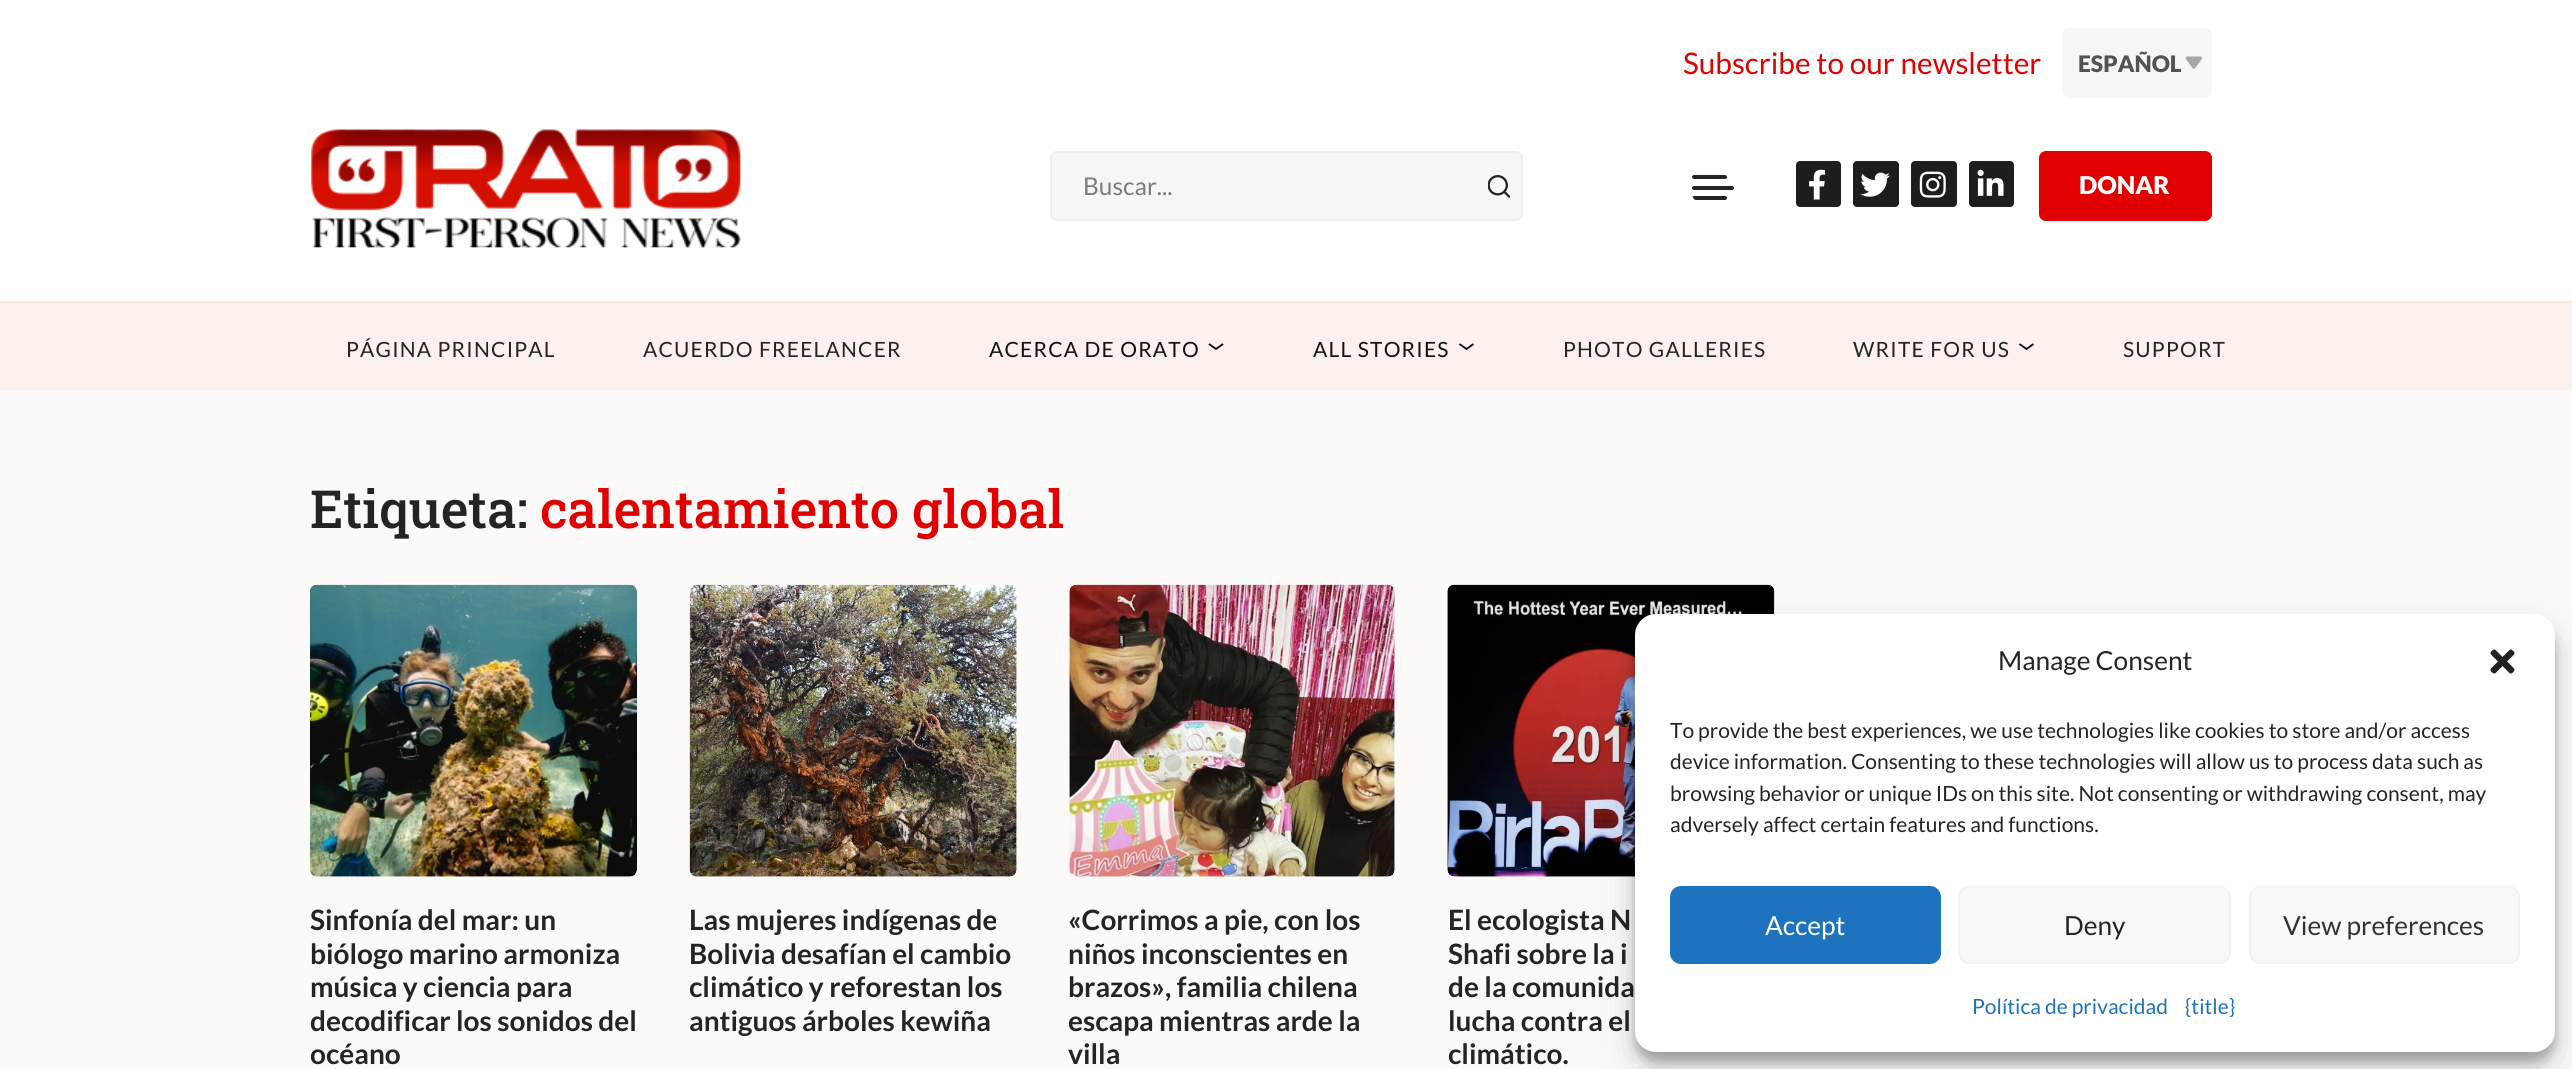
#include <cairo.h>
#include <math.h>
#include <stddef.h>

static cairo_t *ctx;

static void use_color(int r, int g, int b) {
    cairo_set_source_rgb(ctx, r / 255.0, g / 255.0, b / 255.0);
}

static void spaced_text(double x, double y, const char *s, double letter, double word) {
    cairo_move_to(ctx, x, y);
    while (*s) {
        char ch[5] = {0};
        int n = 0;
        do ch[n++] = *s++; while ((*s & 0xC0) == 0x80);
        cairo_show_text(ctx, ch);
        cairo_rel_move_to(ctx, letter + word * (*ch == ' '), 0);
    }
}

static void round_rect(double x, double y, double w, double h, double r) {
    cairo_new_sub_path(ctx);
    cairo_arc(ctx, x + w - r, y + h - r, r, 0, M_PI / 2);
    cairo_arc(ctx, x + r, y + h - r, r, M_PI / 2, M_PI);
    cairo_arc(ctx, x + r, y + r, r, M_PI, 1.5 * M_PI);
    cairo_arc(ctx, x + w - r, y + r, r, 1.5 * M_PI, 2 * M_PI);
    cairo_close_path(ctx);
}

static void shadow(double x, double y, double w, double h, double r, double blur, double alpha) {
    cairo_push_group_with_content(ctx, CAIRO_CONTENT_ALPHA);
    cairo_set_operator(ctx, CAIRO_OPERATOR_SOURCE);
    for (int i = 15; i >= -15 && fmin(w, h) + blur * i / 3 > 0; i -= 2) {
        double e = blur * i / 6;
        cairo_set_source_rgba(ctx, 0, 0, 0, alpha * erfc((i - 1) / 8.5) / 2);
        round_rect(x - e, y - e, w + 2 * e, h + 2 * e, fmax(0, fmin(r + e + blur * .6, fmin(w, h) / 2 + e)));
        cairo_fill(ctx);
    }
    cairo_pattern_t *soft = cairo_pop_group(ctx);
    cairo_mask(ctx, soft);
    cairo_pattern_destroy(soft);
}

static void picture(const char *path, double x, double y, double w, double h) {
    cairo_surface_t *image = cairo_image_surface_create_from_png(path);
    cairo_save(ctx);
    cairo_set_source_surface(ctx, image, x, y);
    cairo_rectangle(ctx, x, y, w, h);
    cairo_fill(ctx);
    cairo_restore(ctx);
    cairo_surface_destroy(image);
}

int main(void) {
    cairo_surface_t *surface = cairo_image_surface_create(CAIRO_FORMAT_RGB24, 2572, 1069);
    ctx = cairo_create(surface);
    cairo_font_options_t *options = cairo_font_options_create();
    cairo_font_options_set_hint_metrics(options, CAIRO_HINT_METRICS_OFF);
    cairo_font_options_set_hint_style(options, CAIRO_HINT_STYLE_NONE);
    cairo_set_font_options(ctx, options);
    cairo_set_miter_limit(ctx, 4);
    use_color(252, 250, 249);
    cairo_paint(ctx);
    use_color(255, 255, 255);
    cairo_rectangle(ctx, 0, 0, 2572, 301);
    cairo_fill(ctx);
    use_color(253, 231, 221);
    cairo_rectangle(ctx, 0, 301, 2572, 2);
    cairo_fill(ctx);
    cairo_select_font_face(ctx, "Lato", CAIRO_FONT_SLANT_NORMAL, CAIRO_FONT_WEIGHT_NORMAL);
    cairo_set_font_size(ctx, 29.75);
    use_color(224, 0, 0);
    cairo_move_to(ctx, 1683, 74);
    cairo_show_text(ctx, "Subscribe to our newsletter");
    use_color(246, 246, 246);
    round_rect(2062, 28, 150, 70, 7);
    cairo_fill(ctx);
    picture("img1.png", 2185, 56, 17, 13);
    cairo_select_font_face(ctx, "Lato Black", CAIRO_FONT_SLANT_NORMAL, CAIRO_FONT_WEIGHT_NORMAL);
    cairo_set_font_size(ctx, 22.75);
    use_color(83, 83, 83);
    cairo_move_to(ctx, 2078, 72);
    cairo_show_text(ctx, "ESPAÑOL");
    picture("img2.png", 311, 129, 430, 119);
    use_color(246, 246, 246);
    round_rect(1051, 152, 471, 68, 6);
    cairo_fill_preserve(ctx);
    use_color(239, 239, 239);
    cairo_stroke(ctx);
    cairo_select_font_face(ctx, "Lato", CAIRO_FONT_SLANT_NORMAL, CAIRO_FONT_WEIGHT_NORMAL);
    cairo_set_font_size(ctx, 24.5);
    use_color(124, 124, 124);
    cairo_move_to(ctx, 1083, 195);
    cairo_show_text(ctx, "Buscar...");
    picture("img3.png", 1488, 175, 22, 23);
    use_color(37, 36, 36);
    round_rect(1692, 186, 42, 4, 2);
    cairo_fill(ctx);
    round_rect(1692, 175, 35, 4, 2);
    cairo_fill(ctx);
    cairo_save(ctx);
    round_rect(1692, 170, 42, 31, 7);
    cairo_clip(ctx);
    round_rect(1692, 196, 35, 4, 2);
    cairo_fill(ctx);
    cairo_restore(ctx);
    use_color(30, 28, 28);
    round_rect(1796, 161, 45, 46, 4);
    cairo_fill(ctx);
    picture("img4.png", 1809, 169, 16, 31);
    round_rect(1853, 161, 46, 46, 4);
    cairo_fill(ctx);
    picture("img5.png", 1860, 172, 30, 25);
    round_rect(1911, 161, 46, 46, 4);
    cairo_fill(ctx);
    picture("img6.png", 1919, 171, 27, 27);
    round_rect(1969, 161, 45, 46, 4);
    cairo_fill(ctx);
    picture("img7.png", 1977, 169, 27, 27);
    use_color(224, 0, 0);
    round_rect(2039, 151, 173, 70, 7);
    cairo_fill(ctx);
    cairo_select_font_face(ctx, "Lato Black", CAIRO_FONT_SLANT_NORMAL, CAIRO_FONT_WEIGHT_NORMAL);
    use_color(255, 255, 255);
    cairo_move_to(ctx, 2079, 194);
    cairo_show_text(ctx, "DONAR");
    use_color(252, 241, 236);
    cairo_rectangle(ctx, 0, 303, 2572, 87);
    cairo_fill(ctx);
    cairo_select_font_face(ctx, "Lato", CAIRO_FONT_SLANT_NORMAL, CAIRO_FONT_WEIGHT_NORMAL);
    cairo_set_font_size(ctx, 21);
    use_color(37, 36, 36);
    spaced_text(346, 357, "PÁGINA PRINCIPAL", 1.2, 0);
    spaced_text(643, 357, "ACUERDO FREELANCER", 1.2, 0);
    use_color(18, 18, 18);
    spaced_text(989, 357, "ACERCA DE ORATO", 1.2, 0);
    cairo_new_path(ctx);
    cairo_move_to(ctx, 1209, 344);
    cairo_line_to(ctx, 1216, 349);
    cairo_line_to(ctx, 1223, 344);
    use_color(0, 0, 0);
    cairo_set_line_width(ctx, 1.8);
    cairo_stroke(ctx);
    use_color(18, 18, 18);
    spaced_text(1313, 357, "ALL STORIES", 1.2, 0);
    cairo_new_path(ctx);
    cairo_move_to(ctx, 1459.5, 344);
    cairo_line_to(ctx, 1466.5, 349);
    cairo_line_to(ctx, 1473.5, 344);
    use_color(0, 0, 0);
    cairo_stroke(ctx);
    use_color(37, 36, 36);
    spaced_text(1563, 357, "PHOTO GALLERIES", 1.2, 0);
    spaced_text(1853, 357, "WRITE FOR US", 1.2, 0);
    cairo_new_path(ctx);
    cairo_move_to(ctx, 2019.5, 344);
    cairo_line_to(ctx, 2026.5, 349);
    cairo_line_to(ctx, 2033.5, 344);
    use_color(0, 0, 0);
    cairo_stroke(ctx);
    use_color(37, 36, 36);
    spaced_text(2123, 357, "SUPPORT", 1.2, 0);
    cairo_select_font_face(ctx, "Roboto Slab Medium", CAIRO_FONT_SLANT_NORMAL, CAIRO_FONT_WEIGHT_NORMAL);
    cairo_set_font_size(ctx, 52.5);
    cairo_move_to(ctx, 310, 528);
    cairo_show_text(ctx, "Etiqueta:");
    use_color(224, 0, 0);
    cairo_move_to(ctx, 540, 528);
    cairo_show_text(ctx, "calentamiento global");
    picture("img8.png", 310, 584, 327, 293);
    cairo_select_font_face(ctx, "Lato", CAIRO_FONT_SLANT_NORMAL, CAIRO_FONT_WEIGHT_BOLD);
    cairo_set_font_size(ctx, 28);
    use_color(37, 36, 36);
    cairo_move_to(ctx, 310, 930);
    cairo_show_text(ctx, "Sinfonía del mar: un");
    cairo_move_to(ctx, 310, 964);
    cairo_show_text(ctx, "biólogo marino armoniza");
    cairo_move_to(ctx, 310, 997);
    cairo_show_text(ctx, "música y ciencia para");
    cairo_move_to(ctx, 310, 1031);
    cairo_show_text(ctx, "decodificar los sonidos del");
    cairo_move_to(ctx, 310, 1064);
    cairo_show_text(ctx, "océano");
    picture("img9.png", 689, 584, 328, 293);
    cairo_move_to(ctx, 689, 930);
    cairo_show_text(ctx, "Las mujeres indígenas de");
    cairo_move_to(ctx, 689, 964);
    cairo_show_text(ctx, "Bolivia desafían el cambio");
    cairo_move_to(ctx, 689, 997);
    cairo_show_text(ctx, "climático y reforestan los");
    cairo_move_to(ctx, 689, 1031);
    cairo_show_text(ctx, "antiguos árboles kewiña");
    picture("img10.png", 1069, 584, 326, 293);
    cairo_move_to(ctx, 1068, 930);
    cairo_show_text(ctx, "«Corrimos a pie, con los");
    cairo_move_to(ctx, 1068, 964);
    cairo_show_text(ctx, "niños inconscientes en");
    cairo_move_to(ctx, 1068, 997);
    cairo_show_text(ctx, "brazos», familia chilena");
    cairo_move_to(ctx, 1068, 1031);
    cairo_show_text(ctx, "escapa mientras arde la");
    cairo_move_to(ctx, 1068, 1064);
    cairo_show_text(ctx, "villa");
    picture("img11.png", 1447, 584, 328, 293);
    cairo_move_to(ctx, 1448, 930);
    cairo_show_text(ctx, "El ecologista N");
    cairo_move_to(ctx, 1448, 964);
    cairo_show_text(ctx, "Shafi sobre la i");
    cairo_move_to(ctx, 1448, 997);
    cairo_show_text(ctx, "de la comunida");
    cairo_move_to(ctx, 1448, 1031);
    cairo_show_text(ctx, "lucha contra el");
    cairo_move_to(ctx, 1448, 1064);
    cairo_show_text(ctx, "climático.");
    use_color(0, 0, 0);
    shadow(1635, 625, 920, 437, 21, 5, 0.23);
    shadow(1635, 632, 920, 437, 21, 17.5, 0.19);
    use_color(255, 255, 255);
    round_rect(1635, 614, 920, 438, 21);
    cairo_fill(ctx);
    cairo_select_font_face(ctx, "Lato", CAIRO_FONT_SLANT_NORMAL, CAIRO_FONT_WEIGHT_NORMAL);
    cairo_set_font_size(ctx, 26.25);
    use_color(37, 36, 36);
    cairo_move_to(ctx, 1998, 670);
    cairo_show_text(ctx, "Manage Consent");
    picture("img12.png", 2490, 649, 25, 25);
    cairo_set_font_size(ctx, 21);
    cairo_move_to(ctx, 1670, 738);
    cairo_show_text(ctx, "To provide the best experiences, we use technologies like cookies to store and/or access");
    cairo_move_to(ctx, 1670, 769);
    cairo_show_text(ctx, "device information. Consenting to these technologies will allow us to process data such as");
    cairo_move_to(ctx, 1670, 801);
    cairo_show_text(ctx, "browsing behavior or unique IDs on this site. Not consenting or withdrawing consent, may");
    cairo_move_to(ctx, 1670, 832);
    cairo_show_text(ctx, "adversely affect certain features and functions.");
    use_color(30, 115, 190);
    round_rect(1671, 887, 269, 76, 10);
    cairo_fill_preserve(ctx);
    cairo_set_line_width(ctx, 2);
    cairo_stroke(ctx);
    cairo_set_font_size(ctx, 26.25);
    use_color(255, 255, 255);
    cairo_move_to(ctx, 1765, 935);
    cairo_show_text(ctx, "Accept");
    use_color(249, 249, 249);
    round_rect(1959, 887, 271, 76, 10);
    cairo_fill_preserve(ctx);
    use_color(242, 242, 242);
    cairo_stroke(ctx);
    use_color(37, 36, 36);
    cairo_move_to(ctx, 2064, 935);
    cairo_show_text(ctx, "Deny");
    use_color(249, 249, 249);
    round_rect(2250, 887, 269, 76, 10);
    cairo_fill_preserve(ctx);
    use_color(242, 242, 242);
    cairo_stroke(ctx);
    use_color(51, 51, 51);
    cairo_move_to(ctx, 2283, 935);
    cairo_show_text(ctx, "View preferences");
    cairo_set_font_size(ctx, 21);
    use_color(30, 115, 190);
    cairo_move_to(ctx, 1972, 1014);
    cairo_show_text(ctx, "Política de privacidad");
    cairo_move_to(ctx, 2185, 1014);
    cairo_show_text(ctx, "{title}");
    cairo_surface_write_to_png(surface, "result.png");
    cairo_font_options_destroy(options);
    cairo_destroy(ctx);
    cairo_surface_destroy(surface);
    return 0;
}
